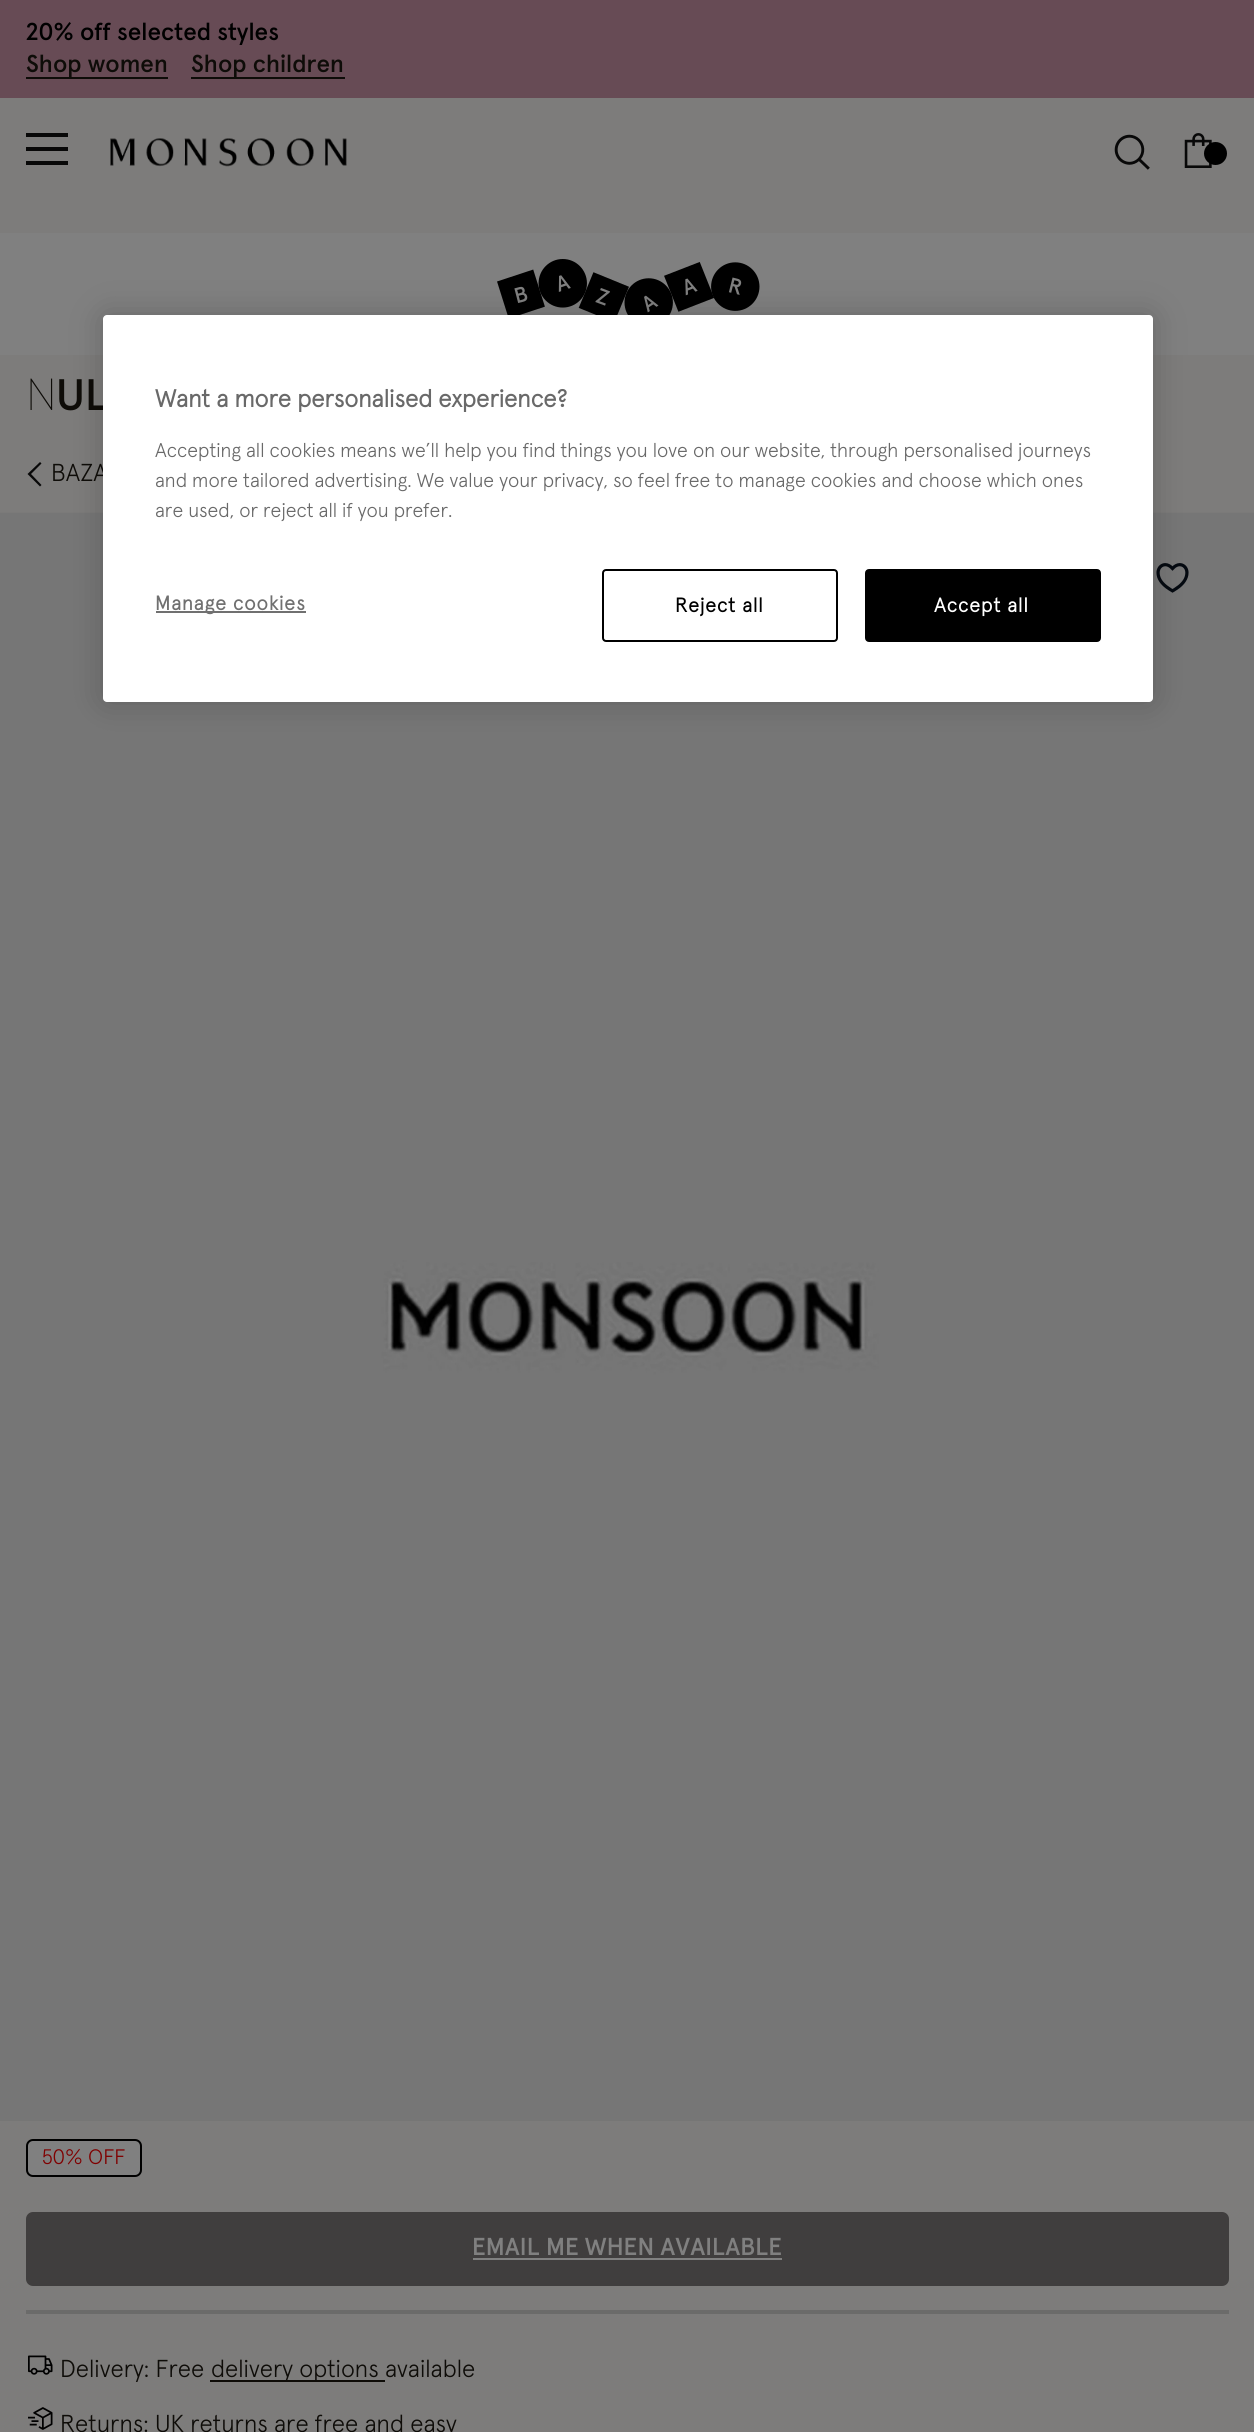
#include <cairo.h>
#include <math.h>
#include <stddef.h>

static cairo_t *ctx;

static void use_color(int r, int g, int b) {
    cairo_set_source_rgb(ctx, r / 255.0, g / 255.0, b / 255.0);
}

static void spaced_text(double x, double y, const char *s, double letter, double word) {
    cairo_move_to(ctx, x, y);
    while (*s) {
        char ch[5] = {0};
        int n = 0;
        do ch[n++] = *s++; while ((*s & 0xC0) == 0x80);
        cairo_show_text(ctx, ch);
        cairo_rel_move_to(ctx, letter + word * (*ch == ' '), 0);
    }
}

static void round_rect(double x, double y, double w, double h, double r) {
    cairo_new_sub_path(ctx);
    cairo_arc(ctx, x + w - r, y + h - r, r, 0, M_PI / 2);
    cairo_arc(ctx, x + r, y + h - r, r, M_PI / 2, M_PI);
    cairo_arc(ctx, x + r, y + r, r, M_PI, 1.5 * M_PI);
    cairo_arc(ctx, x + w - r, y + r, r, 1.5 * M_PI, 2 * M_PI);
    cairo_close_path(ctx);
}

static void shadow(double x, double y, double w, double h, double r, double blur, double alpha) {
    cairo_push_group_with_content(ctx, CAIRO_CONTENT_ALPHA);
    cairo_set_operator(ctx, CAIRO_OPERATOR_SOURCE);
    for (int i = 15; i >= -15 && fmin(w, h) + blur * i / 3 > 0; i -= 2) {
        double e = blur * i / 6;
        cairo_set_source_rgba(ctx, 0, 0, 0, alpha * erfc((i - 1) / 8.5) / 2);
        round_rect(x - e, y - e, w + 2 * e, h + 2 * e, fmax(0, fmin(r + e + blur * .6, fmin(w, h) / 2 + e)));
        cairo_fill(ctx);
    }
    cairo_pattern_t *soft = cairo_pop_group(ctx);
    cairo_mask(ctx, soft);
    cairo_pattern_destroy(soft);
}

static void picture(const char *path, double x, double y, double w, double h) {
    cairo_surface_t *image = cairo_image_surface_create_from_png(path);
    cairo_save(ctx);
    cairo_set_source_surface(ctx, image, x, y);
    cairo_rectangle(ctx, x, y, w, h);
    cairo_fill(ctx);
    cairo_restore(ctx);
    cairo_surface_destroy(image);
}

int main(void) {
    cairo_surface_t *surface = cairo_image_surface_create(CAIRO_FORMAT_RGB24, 1254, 2432);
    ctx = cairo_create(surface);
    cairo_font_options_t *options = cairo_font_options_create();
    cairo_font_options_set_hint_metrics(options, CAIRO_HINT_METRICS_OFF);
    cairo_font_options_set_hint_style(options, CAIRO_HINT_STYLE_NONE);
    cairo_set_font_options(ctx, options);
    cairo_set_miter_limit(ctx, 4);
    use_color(125, 124, 123);
    cairo_paint(ctx);
    use_color(103, 75, 85);
    cairo_rectangle(ctx, 0, 0, 1254, 98);
    cairo_fill(ctx);
    cairo_select_font_face(ctx, "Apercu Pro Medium", CAIRO_FONT_SLANT_NORMAL, CAIRO_FONT_WEIGHT_NORMAL);
    cairo_set_font_size(ctx, 24.5);
    use_color(0, 0, 0);
    cairo_move_to(ctx, 26, 40);
    cairo_show_text(ctx, "20% off selected styles");
    use_color(14, 12, 8);
    cairo_move_to(ctx, 26, 72);
    cairo_show_text(ctx, "Shop women");
    cairo_rectangle(ctx, 26, 77, 142, 2);
    cairo_fill(ctx);
    cairo_move_to(ctx, 191, 72);
    cairo_show_text(ctx, "Shop children");
    cairo_rectangle(ctx, 191, 77, 154, 2);
    cairo_fill(ctx);
    use_color(8, 8, 8);
    cairo_rectangle(ctx, 26, 133, 42, 4);
    cairo_fill(ctx);
    cairo_rectangle(ctx, 26, 147, 42, 4);
    cairo_fill(ctx);
    cairo_rectangle(ctx, 26, 161, 42, 4);
    cairo_fill(ctx);
    picture("img1.png", 110, 138, 237, 29);
    picture("img2.png", 1114, 134, 36, 36);
    picture("img3.png", 1184, 133, 28, 35);
    use_color(0, 0, 0);
    cairo_arc(ctx, 1215.5, 153.5, 11.5, 0, 2 * M_PI);
    cairo_fill(ctx);
    use_color(128, 128, 128);
    cairo_rectangle(ctx, 0, 233, 1254, 122);
    cairo_fill(ctx);
    picture("img4.png", 497, 259, 263, 56);
    cairo_select_font_face(ctx, "Noto Sans Thin", CAIRO_FONT_SLANT_NORMAL, CAIRO_FONT_WEIGHT_NORMAL);
    cairo_set_font_size(ctx, 44);
    use_color(14, 12, 8);
    cairo_move_to(ctx, 26, 410);
    cairo_show_text(ctx, "N");
    cairo_select_font_face(ctx, "Apercu Pro Medium", CAIRO_FONT_SLANT_NORMAL, CAIRO_FONT_WEIGHT_NORMAL);
    cairo_move_to(ctx, 56, 410);
    cairo_show_text(ctx, "UL");
    use_color(8, 8, 8);
    cairo_new_path(ctx);
    cairo_move_to(ctx, 40, 486.5);
    cairo_line_to(ctx, 27.5, 474);
    cairo_line_to(ctx, 40, 462);
    cairo_line_to(ctx, 41.5, 463.5);
    cairo_line_to(ctx, 31, 474);
    cairo_line_to(ctx, 41.5, 485);
    cairo_close_path(ctx);
    cairo_fill(ctx);
    cairo_select_font_face(ctx, "Apercu Pro Light", CAIRO_FONT_SLANT_NORMAL, CAIRO_FONT_WEIGHT_NORMAL);
    cairo_set_font_size(ctx, 24.5);
    use_color(14, 12, 8);
    cairo_move_to(ctx, 51, 481);
    cairo_show_text(ctx, "BAZA");
    picture("img5.png", 0, 512, 1254, 1609);
    picture("img6.png", 1156, 563, 33, 30);
    use_color(128, 128, 128);
    round_rect(27, 2140, 114, 36, 6);
    cairo_fill_preserve(ctx);
    use_color(0, 0, 0);
    cairo_stroke(ctx);
    cairo_set_font_size(ctx, 21);
    use_color(128, 0, 0);
    cairo_move_to(ctx, 42, 2164);
    cairo_show_text(ctx, "50% OFF");
    use_color(64, 62, 62);
    round_rect(27, 2213, 1201, 72, 6);
    cairo_fill_preserve(ctx);
    cairo_stroke(ctx);
    cairo_select_font_face(ctx, "Apercu Pro Medium", CAIRO_FONT_SLANT_NORMAL, CAIRO_FONT_WEIGHT_NORMAL);
    cairo_set_font_size(ctx, 24.5);
    use_color(128, 128, 128);
    cairo_move_to(ctx, 472, 2255);
    cairo_show_text(ctx, "EMAIL ME WHEN AVAILABLE");
    cairo_rectangle(ctx, 473, 2258, 309, 2);
    cairo_fill(ctx);
    use_color(107, 107, 106);
    cairo_rectangle(ctx, 26, 2310, 1203, 4);
    cairo_fill(ctx);
    picture("img7.png", 28, 2355, 25, 20);
    cairo_select_font_face(ctx, "Apercu Pro Light", CAIRO_FONT_SLANT_NORMAL, CAIRO_FONT_WEIGHT_NORMAL);
    use_color(14, 12, 8);
    cairo_move_to(ctx, 60, 2377);
    cairo_show_text(ctx, "Delivery: Free");
    cairo_rectangle(ctx, 210, 2380, 175, 2);
    cairo_fill(ctx);
    cairo_move_to(ctx, 211, 2377);
    cairo_show_text(ctx, "delivery options available");
    picture("img8.png", 28, 2407, 25, 23);
    cairo_move_to(ctx, 60, 2432);
    cairo_show_text(ctx, "Returns: UK returns are free and easy");
    use_color(0, 0, 0);
    shadow(103, 315, 1050, 387, 4, 16, 0.2);
    use_color(255, 255, 255);
    round_rect(103, 315, 1050, 387, 4);
    cairo_fill(ctx);
    cairo_select_font_face(ctx, "Apercu Pro", CAIRO_FONT_SLANT_NORMAL, CAIRO_FONT_WEIGHT_BOLD);
    use_color(105, 105, 105);
    cairo_move_to(ctx, 155, 407);
    cairo_show_text(ctx, "Want a more personalised experience?");
    cairo_select_font_face(ctx, "Apercu Pro Light", CAIRO_FONT_SLANT_NORMAL, CAIRO_FONT_WEIGHT_NORMAL);
    cairo_set_font_size(ctx, 19.9);
    cairo_move_to(ctx, 155, 457);
    cairo_show_text(ctx, "Accepting all cookies means we’ll help you find things you love on our website, through personalised journeys");
    cairo_move_to(ctx, 155, 487);
    cairo_show_text(ctx, "and more tailored advertising. We value your privacy, so feel free to manage cookies and choose which ones");
    cairo_move_to(ctx, 155, 517);
    cairo_show_text(ctx, "are used, or reject all if you prefer.");
    use_color(112, 112, 112);
    cairo_rectangle(ctx, 156, 611, 150, 2);
    cairo_fill(ctx);
    cairo_select_font_face(ctx, "Apercu Pro", CAIRO_FONT_SLANT_NORMAL, CAIRO_FONT_WEIGHT_BOLD);
    spaced_text(155, 610, "Manage cookies", 1, 0);
    round_rect(603, 570, 234, 71, 3);
    use_color(0, 0, 0);
    cairo_stroke(ctx);
    spaced_text(675, 612, "Reject all", 1, 0);
    round_rect(866, 570, 234, 71, 3);
    cairo_fill_preserve(ctx);
    cairo_stroke(ctx);
    use_color(255, 255, 255);
    spaced_text(934, 612, "Accept all", 1, 0);
    cairo_surface_write_to_png(surface, "result.png");
    cairo_font_options_destroy(options);
    cairo_destroy(ctx);
    cairo_surface_destroy(surface);
    return 0;
}
